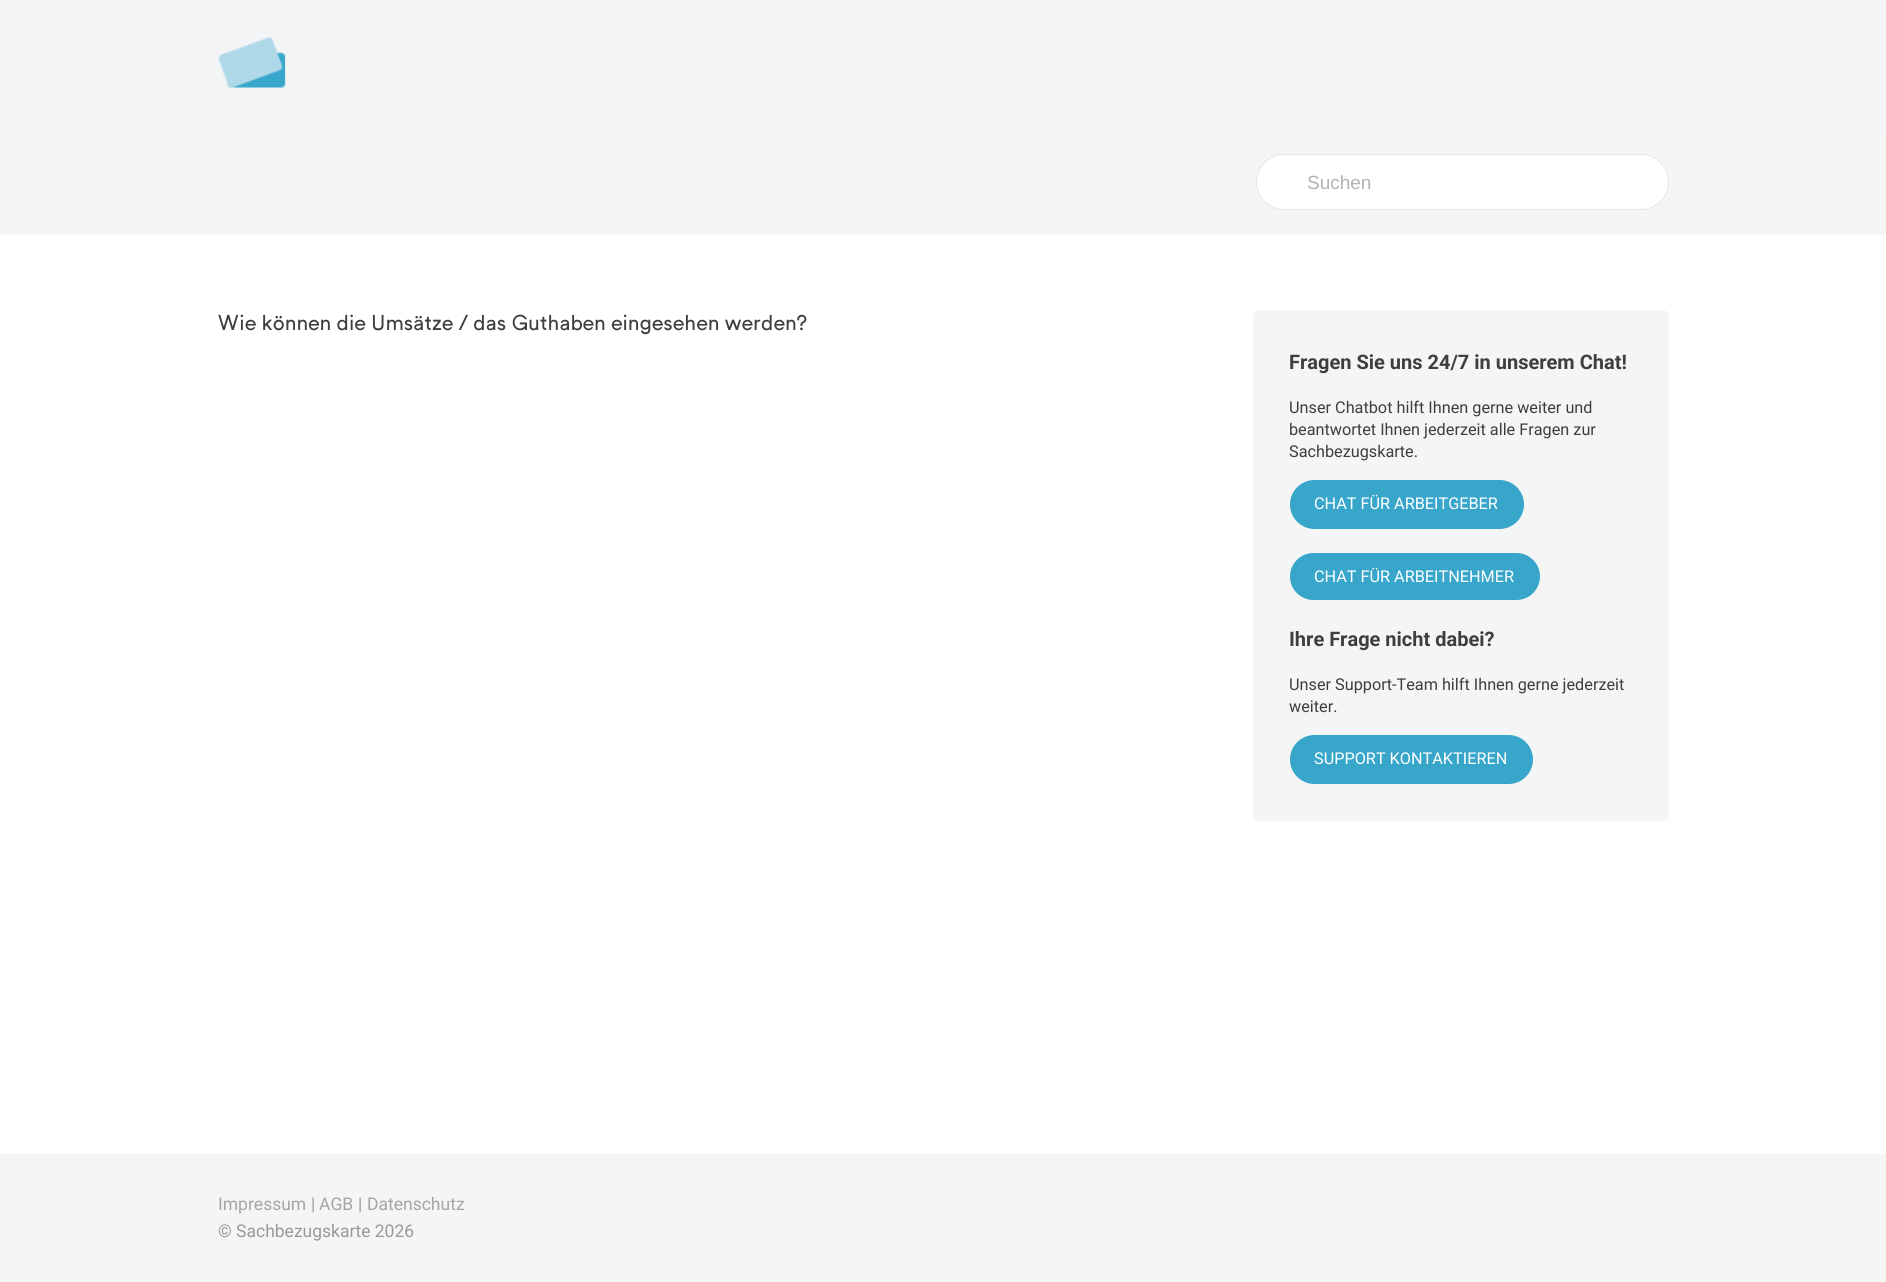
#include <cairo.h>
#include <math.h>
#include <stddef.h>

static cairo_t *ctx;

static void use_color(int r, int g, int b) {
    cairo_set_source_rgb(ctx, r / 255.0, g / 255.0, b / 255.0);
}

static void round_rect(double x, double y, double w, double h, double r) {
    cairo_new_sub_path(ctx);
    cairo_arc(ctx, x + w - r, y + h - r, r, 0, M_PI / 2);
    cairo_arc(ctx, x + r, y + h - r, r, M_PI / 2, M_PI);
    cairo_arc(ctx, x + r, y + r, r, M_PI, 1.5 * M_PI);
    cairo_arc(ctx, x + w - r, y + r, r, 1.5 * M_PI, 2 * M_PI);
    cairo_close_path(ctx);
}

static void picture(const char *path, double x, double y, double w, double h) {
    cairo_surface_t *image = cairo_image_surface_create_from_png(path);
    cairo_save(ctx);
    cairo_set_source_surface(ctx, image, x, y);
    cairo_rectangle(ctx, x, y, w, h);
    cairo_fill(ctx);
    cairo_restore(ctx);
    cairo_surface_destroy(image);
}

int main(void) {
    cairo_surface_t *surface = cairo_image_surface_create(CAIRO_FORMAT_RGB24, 1886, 1282);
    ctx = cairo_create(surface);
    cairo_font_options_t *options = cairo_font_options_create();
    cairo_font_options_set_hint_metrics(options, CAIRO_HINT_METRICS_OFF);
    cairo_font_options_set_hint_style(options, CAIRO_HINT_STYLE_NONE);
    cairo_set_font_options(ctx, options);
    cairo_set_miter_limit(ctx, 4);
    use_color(255, 255, 255);
    cairo_paint(ctx);
    use_color(243, 244, 245);
    cairo_rectangle(ctx, 0, 0, 1886, 129);
    cairo_fill(ctx);
    picture("img1.png", 218, 37, 68, 51);
    use_color(244, 245, 245);
    cairo_rectangle(ctx, 0, 129, 1886, 106);
    cairo_fill(ctx);
    use_color(255, 255, 255);
    round_rect(1256, 154, 413, 56, 28);
    cairo_fill(ctx);
    round_rect(1256.5, 154.5, 412, 55, 27.5);
    cairo_set_source_rgba(ctx, 0.8, 0.8, 0.8, 0.5);
    cairo_set_line_width(ctx, 1);
    cairo_stroke(ctx);
    cairo_select_font_face(ctx, "Liberation Sans", CAIRO_FONT_SLANT_NORMAL, CAIRO_FONT_WEIGHT_NORMAL);
    cairo_set_font_size(ctx, 19);
    use_color(179, 179, 179);
    cairo_move_to(ctx, 1307, 189);
    cairo_show_text(ctx, "Suchen");
    cairo_select_font_face(ctx, "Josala", CAIRO_FONT_SLANT_NORMAL, CAIRO_FONT_WEIGHT_NORMAL);
    cairo_set_font_size(ctx, 21.25);
    use_color(62, 62, 62);
    cairo_move_to(ctx, 218, 330);
    cairo_show_text(ctx, "Wie können die Umsätze / das Guthaben eingesehen werden?");
    use_color(244, 245, 245);
    round_rect(1253, 310, 416, 511, 6);
    cairo_fill(ctx);
    cairo_select_font_face(ctx, "Roboto", CAIRO_FONT_SLANT_NORMAL, CAIRO_FONT_WEIGHT_BOLD);
    cairo_set_font_size(ctx, 20);
    use_color(62, 62, 62);
    cairo_move_to(ctx, 1289, 369);
    cairo_show_text(ctx, "Fragen Sie uns 24/7 in unserem Chat!");
    cairo_select_font_face(ctx, "Roboto", CAIRO_FONT_SLANT_NORMAL, CAIRO_FONT_WEIGHT_NORMAL);
    cairo_set_font_size(ctx, 16.25);
    cairo_move_to(ctx, 1289, 413);
    cairo_show_text(ctx, "Unser Chatbot hilft Ihnen gerne weiter und");
    cairo_move_to(ctx, 1289, 435);
    cairo_show_text(ctx, "beantwortet Ihnen jederzeit alle Fragen zur");
    cairo_move_to(ctx, 1289, 457);
    cairo_show_text(ctx, "Sachbezugskarte.");
    use_color(56, 166, 203);
    round_rect(1290, 480, 234, 49, 24.5);
    cairo_fill(ctx);
    use_color(255, 255, 255);
    cairo_move_to(ctx, 1314, 509);
    cairo_show_text(ctx, "CHAT FÜR ARBEITGEBER");
    use_color(56, 166, 203);
    round_rect(1290, 553, 250, 47, 23.5);
    cairo_fill(ctx);
    use_color(255, 255, 255);
    cairo_move_to(ctx, 1314, 582);
    cairo_show_text(ctx, "CHAT FÜR ARBEITNEHMER");
    cairo_select_font_face(ctx, "Roboto", CAIRO_FONT_SLANT_NORMAL, CAIRO_FONT_WEIGHT_BOLD);
    cairo_set_font_size(ctx, 20);
    use_color(62, 62, 62);
    cairo_move_to(ctx, 1289, 646);
    cairo_show_text(ctx, "Ihre Frage nicht dabei?");
    cairo_select_font_face(ctx, "Roboto", CAIRO_FONT_SLANT_NORMAL, CAIRO_FONT_WEIGHT_NORMAL);
    cairo_set_font_size(ctx, 16.25);
    cairo_move_to(ctx, 1289, 690);
    cairo_show_text(ctx, "Unser Support-Team hilft Ihnen gerne jederzeit");
    cairo_move_to(ctx, 1289, 712);
    cairo_show_text(ctx, "weiter.");
    use_color(56, 166, 203);
    round_rect(1290, 735, 243, 49, 24.5);
    cairo_fill(ctx);
    use_color(255, 255, 255);
    cairo_move_to(ctx, 1314, 764);
    cairo_show_text(ctx, "SUPPORT KONTAKTIEREN");
    use_color(244, 245, 245);
    cairo_rectangle(ctx, 0, 1154, 1886, 128);
    cairo_fill(ctx);
    cairo_set_font_size(ctx, 17.5);
    use_color(165, 165, 165);
    cairo_move_to(ctx, 218, 1210);
    cairo_show_text(ctx, "Impressum");
    use_color(153, 153, 153);
    cairo_move_to(ctx, 311, 1210);
    cairo_show_text(ctx, "|");
    use_color(165, 165, 165);
    cairo_move_to(ctx, 319, 1210);
    cairo_show_text(ctx, "AGB");
    use_color(153, 153, 153);
    cairo_move_to(ctx, 358, 1210);
    cairo_show_text(ctx, "|");
    use_color(165, 165, 165);
    cairo_move_to(ctx, 367, 1210);
    cairo_show_text(ctx, "Datenschutz");
    use_color(153, 153, 153);
    cairo_move_to(ctx, 218, 1237);
    cairo_show_text(ctx, "© Sachbezugskarte 2026");
    cairo_surface_write_to_png(surface, "result.png");
    cairo_font_options_destroy(options);
    cairo_destroy(ctx);
    cairo_surface_destroy(surface);
    return 0;
}
